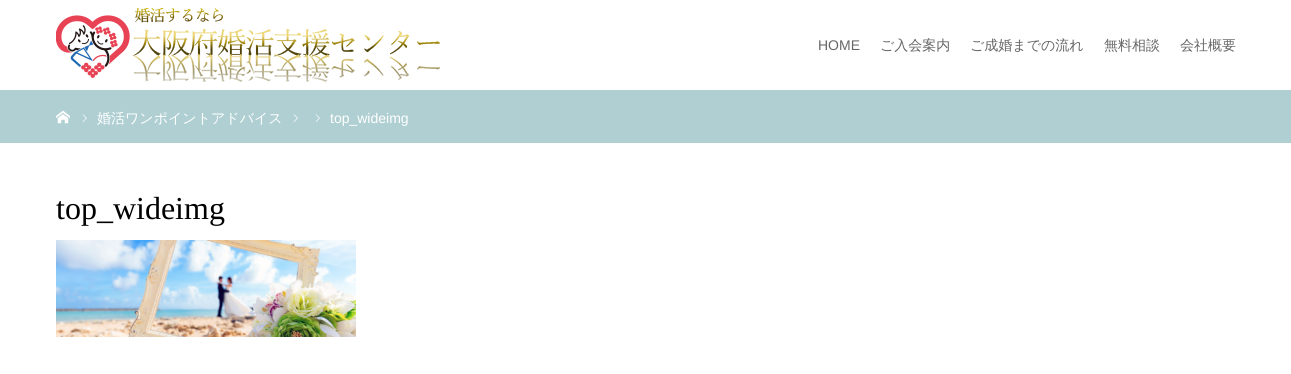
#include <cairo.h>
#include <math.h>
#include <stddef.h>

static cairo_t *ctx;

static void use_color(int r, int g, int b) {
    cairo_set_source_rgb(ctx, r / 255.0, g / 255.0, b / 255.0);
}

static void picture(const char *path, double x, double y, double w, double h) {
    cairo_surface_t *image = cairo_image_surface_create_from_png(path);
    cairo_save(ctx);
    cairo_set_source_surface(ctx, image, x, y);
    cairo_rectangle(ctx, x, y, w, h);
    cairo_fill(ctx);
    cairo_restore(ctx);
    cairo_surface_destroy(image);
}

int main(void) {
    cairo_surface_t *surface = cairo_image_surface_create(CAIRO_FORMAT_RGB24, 1291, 374);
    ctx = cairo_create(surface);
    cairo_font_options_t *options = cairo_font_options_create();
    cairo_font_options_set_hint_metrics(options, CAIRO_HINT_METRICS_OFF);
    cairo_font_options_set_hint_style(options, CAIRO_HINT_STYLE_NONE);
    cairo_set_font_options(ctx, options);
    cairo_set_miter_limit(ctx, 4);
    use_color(255, 255, 255);
    cairo_paint(ctx);
    picture("img1.png", 56, 8, 384, 74);
    cairo_select_font_face(ctx, "Liberation Sans", CAIRO_FONT_SLANT_NORMAL, CAIRO_FONT_WEIGHT_NORMAL);
    cairo_set_font_size(ctx, 14);
    use_color(102, 102, 102);
    cairo_move_to(ctx, 818, 50);
    cairo_show_text(ctx, "HOME");
    cairo_select_font_face(ctx, "WenQuanYi Zen Hei Medium", CAIRO_FONT_SLANT_NORMAL, CAIRO_FONT_WEIGHT_NORMAL);
    cairo_move_to(ctx, 880, 50);
    cairo_show_text(ctx, "ご入会案内");
    cairo_move_to(ctx, 970, 50);
    cairo_show_text(ctx, "ご成婚までの流れ");
    cairo_move_to(ctx, 1104, 50);
    cairo_show_text(ctx, "無料相談");
    cairo_move_to(ctx, 1180, 50);
    cairo_show_text(ctx, "会社概要");
    use_color(176, 207, 210);
    cairo_rectangle(ctx, 0, 90, 1291, 53);
    cairo_fill(ctx);
    picture("img2.png", 56, 110, 14, 14);
    picture("img3.png", 82, 114, 5, 8);
    use_color(255, 255, 255);
    cairo_move_to(ctx, 97, 123);
    cairo_show_text(ctx, "婚活ワンポイントアドバイス");
    picture("img3.png", 293, 114, 5, 8);
    picture("img3.png", 315, 114, 5, 8);
    cairo_select_font_face(ctx, "Liberation Sans", CAIRO_FONT_SLANT_NORMAL, CAIRO_FONT_WEIGHT_NORMAL);
    cairo_move_to(ctx, 330, 123);
    cairo_show_text(ctx, "top_wideimg");
    cairo_select_font_face(ctx, "Liberation Serif", CAIRO_FONT_SLANT_NORMAL, CAIRO_FONT_WEIGHT_NORMAL);
    cairo_set_font_size(ctx, 32);
    use_color(0, 0, 0);
    cairo_move_to(ctx, 56, 219);
    cairo_show_text(ctx, "top_wideimg");
    picture("img4.png", 56, 240, 300, 97);
    cairo_surface_write_to_png(surface, "result.png");
    cairo_font_options_destroy(options);
    cairo_destroy(ctx);
    cairo_surface_destroy(surface);
    return 0;
}
